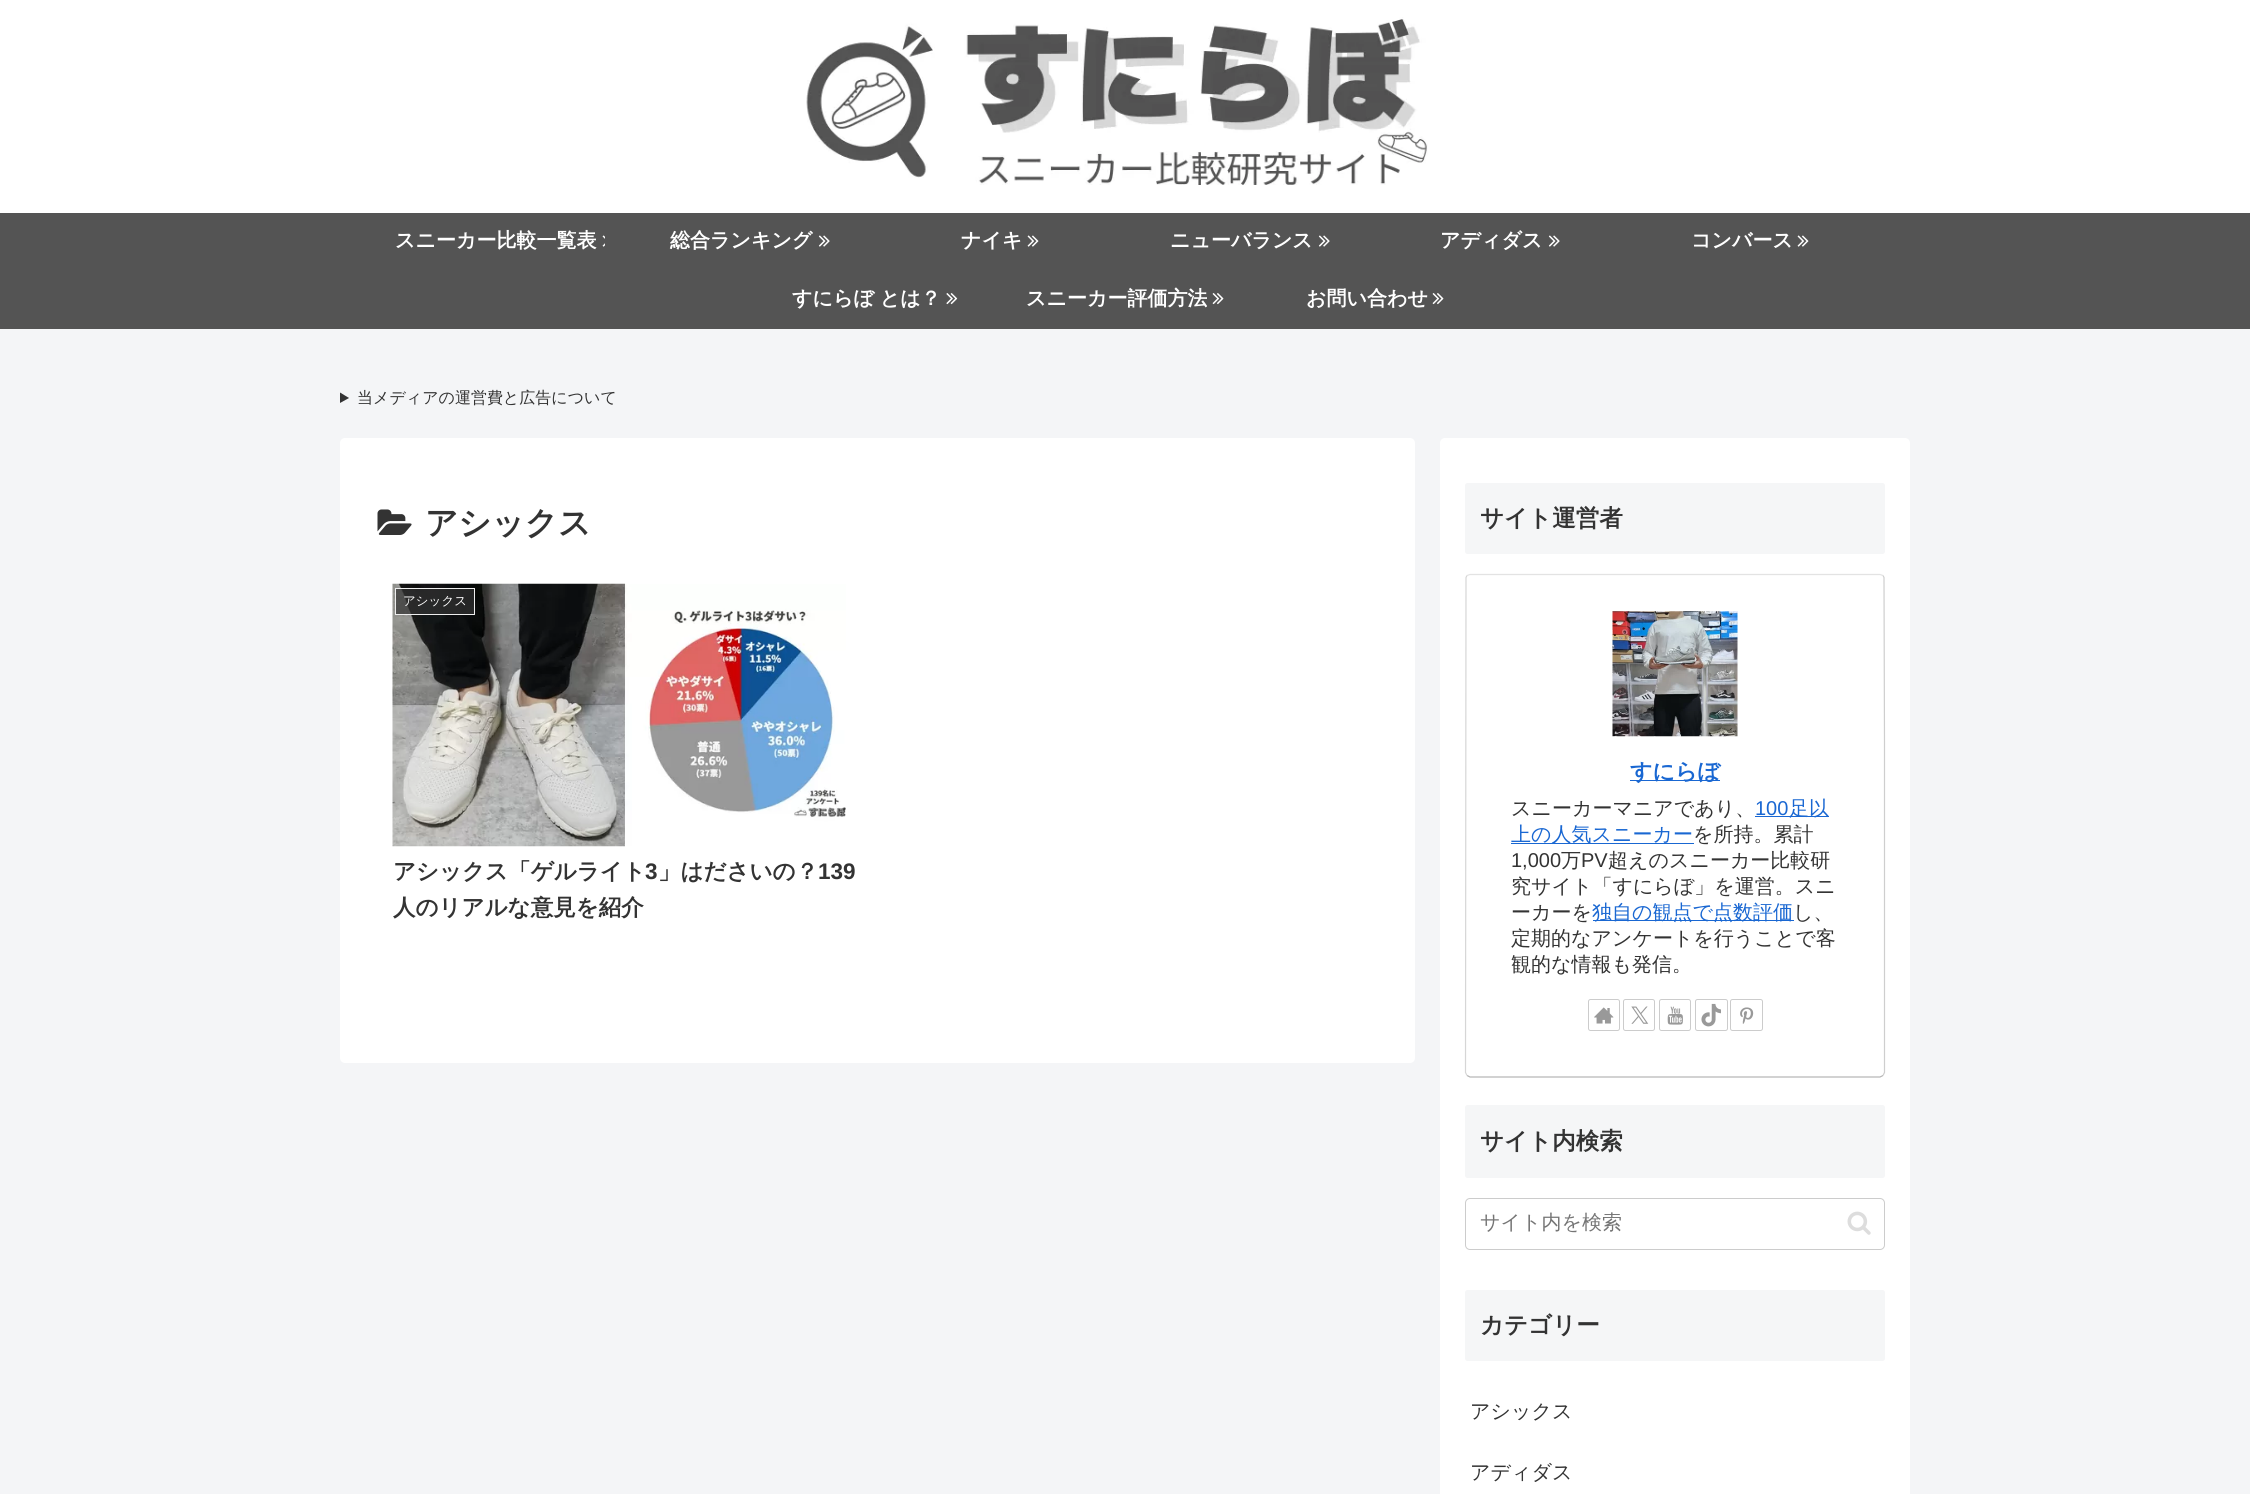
#include <cairo.h>
#include <math.h>
#include <stddef.h>

static cairo_t *ctx;

static void use_color(int r, int g, int b) {
    cairo_set_source_rgb(ctx, r / 255.0, g / 255.0, b / 255.0);
}

static void round_rect(double x, double y, double w, double h, double r) {
    cairo_new_sub_path(ctx);
    cairo_arc(ctx, x + w - r, y + h - r, r, 0, M_PI / 2);
    cairo_arc(ctx, x + r, y + h - r, r, M_PI / 2, M_PI);
    cairo_arc(ctx, x + r, y + r, r, M_PI, 1.5 * M_PI);
    cairo_arc(ctx, x + w - r, y + r, r, 1.5 * M_PI, 2 * M_PI);
    cairo_close_path(ctx);
}

static void picture(const char *path, double x, double y, double w, double h) {
    cairo_surface_t *image = cairo_image_surface_create_from_png(path);
    cairo_save(ctx);
    cairo_set_source_surface(ctx, image, x, y);
    cairo_rectangle(ctx, x, y, w, h);
    cairo_fill(ctx);
    cairo_restore(ctx);
    cairo_surface_destroy(image);
}

int main(void) {
    cairo_surface_t *surface = cairo_image_surface_create(CAIRO_FORMAT_RGB24, 2250, 1494);
    ctx = cairo_create(surface);
    cairo_font_options_t *options = cairo_font_options_create();
    cairo_font_options_set_hint_metrics(options, CAIRO_HINT_METRICS_OFF);
    cairo_font_options_set_hint_style(options, CAIRO_HINT_STYLE_NONE);
    cairo_set_font_options(ctx, options);
    cairo_set_miter_limit(ctx, 4);
    use_color(244, 245, 247);
    cairo_paint(ctx);
    use_color(255, 255, 255);
    cairo_rectangle(ctx, 0, 0, 2250, 213);
    cairo_fill(ctx);
    picture("img1.png", 806, 17, 622, 168);
    use_color(84, 84, 84);
    cairo_rectangle(ctx, 0, 213, 2250, 116);
    cairo_fill(ctx);
    cairo_select_font_face(ctx, "WenQuanYi Zen Hei", CAIRO_FONT_SLANT_NORMAL, CAIRO_FONT_WEIGHT_BOLD);
    cairo_set_font_size(ctx, 20);
    use_color(255, 255, 255);
    cairo_move_to(ctx, 395, 247);
    cairo_show_text(ctx, "スニーカー比較一覧表");
    picture("img2.png", 602, 235, 3, 12);
    cairo_move_to(ctx, 670, 247);
    cairo_show_text(ctx, "総合ランキング");
    picture("img3.png", 818, 235, 12, 12);
    cairo_move_to(ctx, 961, 247);
    cairo_show_text(ctx, "ナイキ");
    picture("img4.png", 1027, 235, 12, 12);
    cairo_move_to(ctx, 1170, 247);
    cairo_show_text(ctx, "ニューバランス");
    picture("img3.png", 1318, 235, 12, 12);
    cairo_move_to(ctx, 1440, 247);
    cairo_show_text(ctx, "アディダス");
    picture("img3.png", 1548, 235, 12, 12);
    cairo_move_to(ctx, 1691, 247);
    cairo_show_text(ctx, "コンバース");
    picture("img4.png", 1797, 235, 12, 12);
    cairo_move_to(ctx, 792, 305);
    cairo_show_text(ctx, "すにらぼ とは？");
    picture("img5.png", 946, 293, 12, 12);
    cairo_move_to(ctx, 1026, 305);
    cairo_show_text(ctx, "スニーカー評価方法");
    picture("img6.png", 1212, 293, 12, 12);
    cairo_move_to(ctx, 1306, 305);
    cairo_show_text(ctx, "お問い合わせ");
    picture("img6.png", 1432, 293, 12, 12);
    use_color(51, 51, 51);
    cairo_new_path(ctx);
    cairo_move_to(ctx, 340, 392.5);
    cairo_line_to(ctx, 349, 398);
    cairo_line_to(ctx, 340, 403);
    cairo_close_path(ctx);
    cairo_fill(ctx);
    cairo_select_font_face(ctx, "WenQuanYi Zen Hei Medium", CAIRO_FONT_SLANT_NORMAL, CAIRO_FONT_WEIGHT_NORMAL);
    cairo_set_font_size(ctx, 16);
    cairo_move_to(ctx, 357, 403);
    cairo_show_text(ctx, "当メディアの運営費と広告について");
    use_color(255, 255, 255);
    round_rect(340, 438, 1075, 625, 5);
    cairo_fill(ctx);
    picture("img7.png", 377, 509, 35, 26);
    cairo_select_font_face(ctx, "WenQuanYi Zen Hei", CAIRO_FONT_SLANT_NORMAL, CAIRO_FONT_WEIGHT_BOLD);
    cairo_set_font_size(ctx, 32.5);
    use_color(51, 51, 51);
    cairo_move_to(ctx, 425, 534);
    cairo_show_text(ctx, "アシックス");
    picture("img8.png", 392, 583, 454, 264);
    cairo_set_source_rgba(ctx, 0.2, 0.2, 0.2, 0.7);
    cairo_rectangle(ctx, 395.5, 588.5, 79, 26);
    cairo_fill_preserve(ctx);
    use_color(238, 238, 238);
    cairo_set_line_width(ctx, 1);
    cairo_stroke(ctx);
    cairo_select_font_face(ctx, "WenQuanYi Zen Hei Medium", CAIRO_FONT_SLANT_NORMAL, CAIRO_FONT_WEIGHT_NORMAL);
    cairo_set_font_size(ctx, 12.5);
    use_color(255, 255, 255);
    cairo_move_to(ctx, 403, 605);
    cairo_show_text(ctx, "アシックス");
    cairo_select_font_face(ctx, "WenQuanYi Zen Hei", CAIRO_FONT_SLANT_NORMAL, CAIRO_FONT_WEIGHT_BOLD);
    cairo_set_font_size(ctx, 22.5);
    use_color(51, 51, 51);
    cairo_move_to(ctx, 393, 879);
    cairo_show_text(ctx, "アシックス「ゲルライト");
    cairo_select_font_face(ctx, "Liberation Sans", CAIRO_FONT_SLANT_NORMAL, CAIRO_FONT_WEIGHT_BOLD);
    cairo_move_to(ctx, 645, 879);
    cairo_show_text(ctx, "3");
    cairo_select_font_face(ctx, "WenQuanYi Zen Hei", CAIRO_FONT_SLANT_NORMAL, CAIRO_FONT_WEIGHT_BOLD);
    cairo_move_to(ctx, 658, 879);
    cairo_show_text(ctx, "」はださいの？");
    cairo_select_font_face(ctx, "Liberation Sans", CAIRO_FONT_SLANT_NORMAL, CAIRO_FONT_WEIGHT_BOLD);
    cairo_move_to(ctx, 818, 879);
    cairo_show_text(ctx, "139");
    cairo_select_font_face(ctx, "WenQuanYi Zen Hei", CAIRO_FONT_SLANT_NORMAL, CAIRO_FONT_WEIGHT_BOLD);
    cairo_move_to(ctx, 393, 915);
    cairo_show_text(ctx, "人のリアルな意見を紹介");
    use_color(255, 255, 255);
    round_rect(1440, 438, 470, 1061, 5);
    cairo_fill(ctx);
    use_color(245, 246, 247);
    round_rect(1465, 483, 420, 71, 2.5);
    cairo_fill(ctx);
    cairo_set_font_size(ctx, 23.5);
    use_color(51, 51, 51);
    cairo_move_to(ctx, 1480, 526);
    cairo_show_text(ctx, "サイト運営者");
    cairo_new_path(ctx);
    cairo_move_to(ctx, 1467, 575.5);
    cairo_line_to(ctx, 1470, 574.5);
    cairo_line_to(ctx, 1880, 574.5);
    cairo_line_to(ctx, 1883, 575.5);
    use_color(227, 227, 227);
    cairo_set_line_width(ctx, 1.2);
    cairo_stroke(ctx);
    cairo_new_path(ctx);
    cairo_move_to(ctx, 1883, 575.5);
    cairo_line_to(ctx, 1884, 577.5);
    cairo_line_to(ctx, 1884.5, 743.5);
    cairo_line_to(ctx, 1884.5, 1072.5);
    cairo_line_to(ctx, 1883, 1075.5);
    use_color(206, 206, 206);
    cairo_stroke(ctx);
    cairo_new_path(ctx);
    cairo_move_to(ctx, 1883, 1075.5);
    cairo_line_to(ctx, 1880, 1077);
    cairo_line_to(ctx, 1470, 1077);
    cairo_line_to(ctx, 1467, 1075.5);
    use_color(180, 180, 180);
    cairo_stroke(ctx);
    cairo_new_path(ctx);
    cairo_move_to(ctx, 1467, 1075.5);
    cairo_line_to(ctx, 1465.5, 1072.5);
    cairo_line_to(ctx, 1466, 577.5);
    cairo_line_to(ctx, 1467, 575.5);
    use_color(214, 214, 214);
    cairo_stroke(ctx);
    picture("img9.png", 1612, 611, 126, 126);
    use_color(25, 103, 210);
    cairo_rectangle(ctx, 1630, 780, 90, 1);
    cairo_fill(ctx);
    cairo_set_font_size(ctx, 22);
    cairo_move_to(ctx, 1630, 779);
    cairo_show_text(ctx, "すにらぼ");
    cairo_select_font_face(ctx, "WenQuanYi Zen Hei Medium", CAIRO_FONT_SLANT_NORMAL, CAIRO_FONT_WEIGHT_NORMAL);
    cairo_set_font_size(ctx, 20);
    use_color(51, 51, 51);
    cairo_move_to(ctx, 1511, 815);
    cairo_show_text(ctx, "スニーカーマニアであり、");
    cairo_select_font_face(ctx, "Liberation Sans", CAIRO_FONT_SLANT_NORMAL, CAIRO_FONT_WEIGHT_NORMAL);
    use_color(25, 103, 210);
    cairo_move_to(ctx, 1755, 815);
    cairo_show_text(ctx, "100");
    cairo_rectangle(ctx, 1755, 816, 74, 1);
    cairo_fill(ctx);
    cairo_select_font_face(ctx, "WenQuanYi Zen Hei Medium", CAIRO_FONT_SLANT_NORMAL, CAIRO_FONT_WEIGHT_NORMAL);
    cairo_move_to(ctx, 1789, 815);
    cairo_show_text(ctx, "足以");
    cairo_rectangle(ctx, 1511, 843, 183, 1);
    cairo_fill(ctx);
    cairo_move_to(ctx, 1511, 841);
    cairo_show_text(ctx, "上の人気スニーカー");
    use_color(51, 51, 51);
    cairo_move_to(ctx, 1693, 841);
    cairo_show_text(ctx, "を所持。累計");
    cairo_select_font_face(ctx, "Liberation Sans", CAIRO_FONT_SLANT_NORMAL, CAIRO_FONT_WEIGHT_NORMAL);
    cairo_move_to(ctx, 1511, 867);
    cairo_show_text(ctx, "1,000");
    cairo_select_font_face(ctx, "WenQuanYi Zen Hei Medium", CAIRO_FONT_SLANT_NORMAL, CAIRO_FONT_WEIGHT_NORMAL);
    cairo_move_to(ctx, 1561, 867);
    cairo_show_text(ctx, "万");
    cairo_select_font_face(ctx, "Liberation Sans", CAIRO_FONT_SLANT_NORMAL, CAIRO_FONT_WEIGHT_NORMAL);
    cairo_move_to(ctx, 1581, 867);
    cairo_show_text(ctx, "PV");
    cairo_select_font_face(ctx, "WenQuanYi Zen Hei Medium", CAIRO_FONT_SLANT_NORMAL, CAIRO_FONT_WEIGHT_NORMAL);
    cairo_move_to(ctx, 1608, 867);
    cairo_show_text(ctx, "超えのスニーカー比較研");
    cairo_move_to(ctx, 1511, 893);
    cairo_show_text(ctx, "究サイト「すにらぼ」を運営。スニ");
    cairo_move_to(ctx, 1511, 919);
    cairo_show_text(ctx, "ーカーを");
    use_color(25, 103, 210);
    cairo_rectangle(ctx, 1593, 920, 201, 1);
    cairo_fill(ctx);
    cairo_move_to(ctx, 1592, 919);
    cairo_show_text(ctx, "独自の観点で点数評価");
    use_color(51, 51, 51);
    cairo_move_to(ctx, 1793, 919);
    cairo_show_text(ctx, "し、");
    cairo_move_to(ctx, 1511, 945);
    cairo_show_text(ctx, "定期的なアンケートを行うことで客");
    cairo_move_to(ctx, 1511, 971);
    cairo_show_text(ctx, "観的な情報も発信。");
    round_rect(1588.5, 999.5, 31, 31, 2);
    use_color(204, 204, 204);
    cairo_set_line_width(ctx, 1);
    cairo_stroke(ctx);
    picture("img10.png", 1594, 1007, 20, 17);
    round_rect(1623.5, 999.5, 31, 31, 2);
    cairo_stroke(ctx);
    picture("img11.png", 1631, 1006, 18, 18);
    round_rect(1659.5, 999.5, 31, 31, 2);
    cairo_stroke(ctx);
    picture("img12.png", 1667, 1006, 16, 19);
    round_rect(1695.5, 999.5, 32, 31, 2);
    cairo_stroke(ctx);
    picture("img13.png", 1701, 1003, 20, 24);
    round_rect(1730.5, 999.5, 32, 31, 2);
    cairo_stroke(ctx);
    picture("img14.png", 1740, 1007, 14, 17);
    use_color(245, 246, 247);
    round_rect(1465, 1105, 420, 73, 2.5);
    cairo_fill(ctx);
    cairo_select_font_face(ctx, "WenQuanYi Zen Hei", CAIRO_FONT_SLANT_NORMAL, CAIRO_FONT_WEIGHT_BOLD);
    cairo_set_font_size(ctx, 23.5);
    use_color(51, 51, 51);
    cairo_move_to(ctx, 1480, 1149);
    cairo_show_text(ctx, "サイト内検索");
    round_rect(1465.5, 1198.5, 419, 51, 4.5);
    use_color(204, 204, 204);
    cairo_stroke(ctx);
    cairo_select_font_face(ctx, "WenQuanYi Zen Hei Medium", CAIRO_FONT_SLANT_NORMAL, CAIRO_FONT_WEIGHT_NORMAL);
    cairo_set_font_size(ctx, 20);
    use_color(117, 117, 117);
    cairo_move_to(ctx, 1480, 1229);
    cairo_show_text(ctx, "サイト内を検索");
    picture("img15.png", 1847, 1211, 24, 24);
    use_color(245, 246, 247);
    round_rect(1465, 1290, 420, 71, 2.5);
    cairo_fill(ctx);
    cairo_select_font_face(ctx, "WenQuanYi Zen Hei", CAIRO_FONT_SLANT_NORMAL, CAIRO_FONT_WEIGHT_BOLD);
    cairo_set_font_size(ctx, 23.5);
    use_color(51, 51, 51);
    cairo_move_to(ctx, 1480, 1333);
    cairo_show_text(ctx, "カテゴリー");
    cairo_select_font_face(ctx, "WenQuanYi Zen Hei Medium", CAIRO_FONT_SLANT_NORMAL, CAIRO_FONT_WEIGHT_NORMAL);
    cairo_set_font_size(ctx, 20);
    cairo_move_to(ctx, 1470, 1418);
    cairo_show_text(ctx, "アシックス");
    cairo_move_to(ctx, 1470, 1479);
    cairo_show_text(ctx, "アディダス");
    cairo_surface_write_to_png(surface, "result.png");
    cairo_font_options_destroy(options);
    cairo_destroy(ctx);
    cairo_surface_destroy(surface);
    return 0;
}
